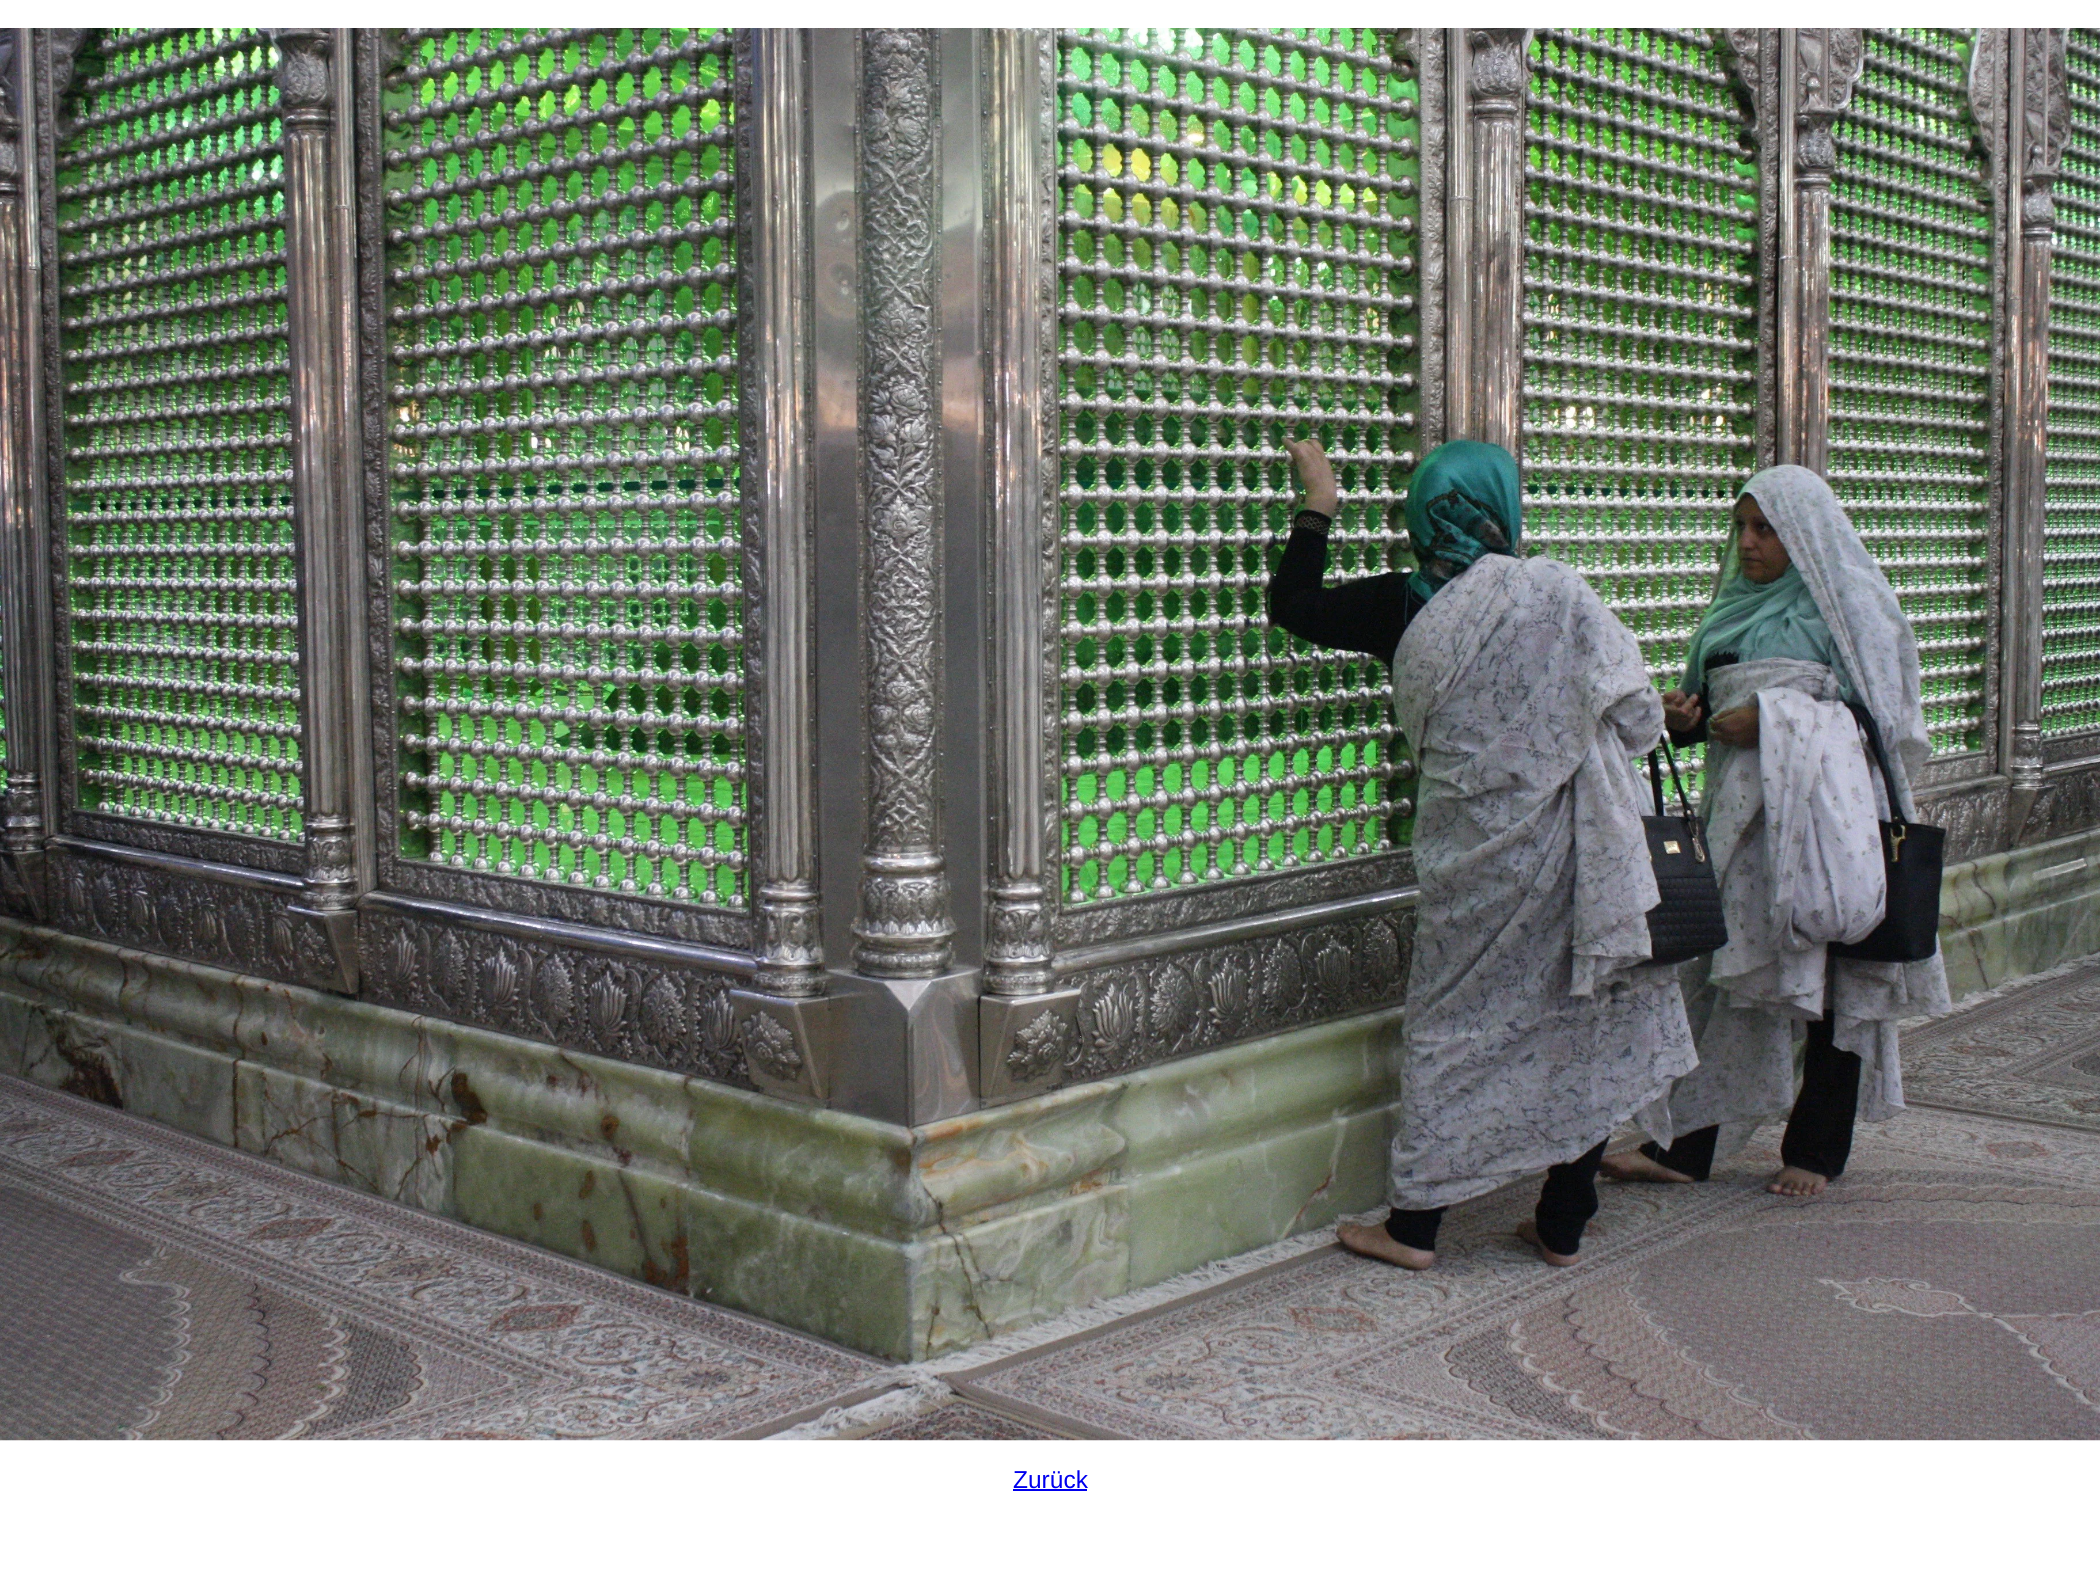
#include <cairo.h>
#include <math.h>
#include <stddef.h>

static cairo_t *ctx;

static void use_color(int r, int g, int b) {
    cairo_set_source_rgb(ctx, r / 255.0, g / 255.0, b / 255.0);
}

static void picture(const char *path, double x, double y, double w, double h) {
    cairo_surface_t *image = cairo_image_surface_create_from_png(path);
    cairo_save(ctx);
    cairo_set_source_surface(ctx, image, x, y);
    cairo_rectangle(ctx, x, y, w, h);
    cairo_fill(ctx);
    cairo_restore(ctx);
    cairo_surface_destroy(image);
}

int main(void) {
    cairo_surface_t *surface = cairo_image_surface_create(CAIRO_FORMAT_RGB24, 2100, 1583);
    ctx = cairo_create(surface);
    cairo_font_options_t *options = cairo_font_options_create();
    cairo_font_options_set_hint_metrics(options, CAIRO_HINT_METRICS_OFF);
    cairo_font_options_set_hint_style(options, CAIRO_HINT_STYLE_NONE);
    cairo_set_font_options(ctx, options);
    cairo_set_miter_limit(ctx, 4);
    use_color(255, 255, 255);
    cairo_paint(ctx);
    picture("img1.png", 0, 28, 2100, 1413);
    cairo_select_font_face(ctx, "Liberation Sans", CAIRO_FONT_SLANT_NORMAL, CAIRO_FONT_WEIGHT_NORMAL);
    cairo_set_font_size(ctx, 24.5);
    use_color(0, 0, 238);
    cairo_move_to(ctx, 1013, 1488);
    cairo_show_text(ctx, "Zurück");
    cairo_rectangle(ctx, 1013, 1489, 74, 2);
    cairo_fill(ctx);
    cairo_surface_write_to_png(surface, "result.png");
    cairo_font_options_destroy(options);
    cairo_destroy(ctx);
    cairo_surface_destroy(surface);
    return 0;
}
